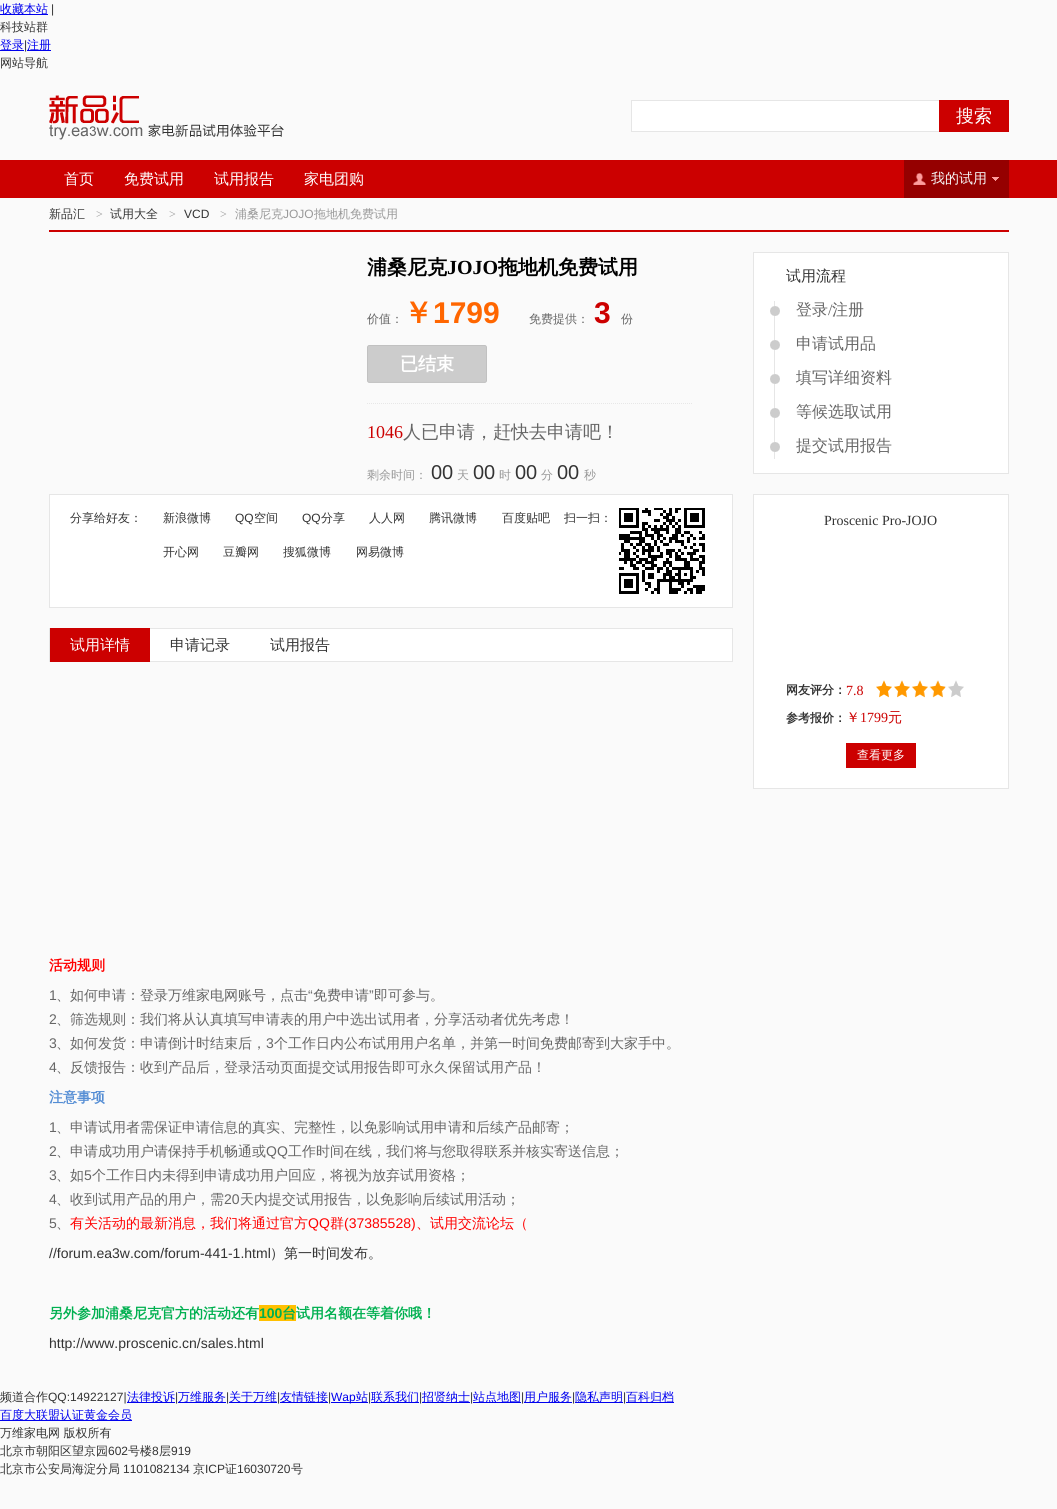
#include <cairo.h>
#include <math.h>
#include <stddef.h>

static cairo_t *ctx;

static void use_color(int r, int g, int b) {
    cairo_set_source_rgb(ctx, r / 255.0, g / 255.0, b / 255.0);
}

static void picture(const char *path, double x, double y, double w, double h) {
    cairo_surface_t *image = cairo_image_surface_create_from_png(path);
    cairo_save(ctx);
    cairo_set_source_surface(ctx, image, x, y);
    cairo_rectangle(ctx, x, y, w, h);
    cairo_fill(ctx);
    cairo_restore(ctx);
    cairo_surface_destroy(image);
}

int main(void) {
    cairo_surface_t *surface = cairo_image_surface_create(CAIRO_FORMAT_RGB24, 1057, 1509);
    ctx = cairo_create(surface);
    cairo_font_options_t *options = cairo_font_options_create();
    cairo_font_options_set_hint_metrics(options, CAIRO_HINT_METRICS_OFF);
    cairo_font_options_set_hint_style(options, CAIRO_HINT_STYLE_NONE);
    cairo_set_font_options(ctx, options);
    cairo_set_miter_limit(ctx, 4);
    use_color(250, 250, 250);
    cairo_paint(ctx);
    use_color(0, 0, 238);
    cairo_rectangle(ctx, 0, 14, 48, 1);
    cairo_fill(ctx);
    cairo_select_font_face(ctx, "WenQuanYi Zen Hei Medium", CAIRO_FONT_SLANT_NORMAL, CAIRO_FONT_WEIGHT_NORMAL);
    cairo_set_font_size(ctx, 12);
    cairo_move_to(ctx, 0, 13);
    cairo_show_text(ctx, "收藏本站");
    cairo_select_font_face(ctx, "Liberation Sans", CAIRO_FONT_SLANT_NORMAL, CAIRO_FONT_WEIGHT_NORMAL);
    use_color(51, 51, 51);
    cairo_move_to(ctx, 51, 13);
    cairo_show_text(ctx, "|");
    cairo_select_font_face(ctx, "WenQuanYi Zen Hei Medium", CAIRO_FONT_SLANT_NORMAL, CAIRO_FONT_WEIGHT_NORMAL);
    cairo_move_to(ctx, 0, 31);
    cairo_show_text(ctx, "科技站群");
    use_color(0, 0, 238);
    cairo_rectangle(ctx, 0, 50, 24, 1);
    cairo_fill(ctx);
    cairo_move_to(ctx, 0, 49);
    cairo_show_text(ctx, "登录");
    cairo_select_font_face(ctx, "Liberation Sans", CAIRO_FONT_SLANT_NORMAL, CAIRO_FONT_WEIGHT_NORMAL);
    use_color(51, 51, 51);
    cairo_move_to(ctx, 24, 49);
    cairo_show_text(ctx, "|");
    use_color(0, 0, 238);
    cairo_rectangle(ctx, 27, 50, 24, 1);
    cairo_fill(ctx);
    cairo_select_font_face(ctx, "WenQuanYi Zen Hei Medium", CAIRO_FONT_SLANT_NORMAL, CAIRO_FONT_WEIGHT_NORMAL);
    cairo_move_to(ctx, 27, 49);
    cairo_show_text(ctx, "注册");
    use_color(51, 51, 51);
    cairo_move_to(ctx, 0, 67);
    cairo_show_text(ctx, "网站导航");
    picture("img1.png", 49, 95, 235, 45);
    use_color(255, 255, 255);
    cairo_rectangle(ctx, 632, 101, 307, 30);
    cairo_fill(ctx);
    use_color(230, 230, 230);
    cairo_rectangle(ctx, 631, 100, 308, 1);
    cairo_fill(ctx);
    cairo_rectangle(ctx, 631, 131, 308, 1);
    cairo_fill(ctx);
    cairo_rectangle(ctx, 631, 100, 1, 32);
    cairo_fill(ctx);
    use_color(204, 0, 0);
    cairo_rectangle(ctx, 939, 100, 70, 32);
    cairo_fill(ctx);
    cairo_set_font_size(ctx, 18);
    use_color(255, 255, 255);
    cairo_move_to(ctx, 956, 122);
    cairo_show_text(ctx, "搜索");
    use_color(204, 0, 0);
    cairo_rectangle(ctx, 0, 160, 1057, 38);
    cairo_fill(ctx);
    cairo_set_font_size(ctx, 15);
    use_color(255, 255, 255);
    cairo_move_to(ctx, 64, 184);
    cairo_show_text(ctx, "首页");
    cairo_move_to(ctx, 124, 184);
    cairo_show_text(ctx, "免费试用");
    cairo_move_to(ctx, 214, 184);
    cairo_show_text(ctx, "试用报告");
    cairo_move_to(ctx, 304, 184);
    cairo_show_text(ctx, "家电团购");
    use_color(149, 0, 0);
    cairo_rectangle(ctx, 904, 160, 105, 38);
    cairo_fill(ctx);
    picture("img2.png", 913, 173, 13, 12);
    picture("img3.png", 992, 177, 7, 4);
    cairo_set_font_size(ctx, 14);
    use_color(246, 246, 246);
    cairo_move_to(ctx, 931, 183);
    cairo_show_text(ctx, "我的试用");
    use_color(204, 0, 0);
    cairo_rectangle(ctx, 49, 230, 960, 2);
    cairo_fill(ctx);
    cairo_set_font_size(ctx, 12);
    use_color(51, 51, 51);
    cairo_move_to(ctx, 49, 218);
    cairo_show_text(ctx, "新品汇");
    cairo_select_font_face(ctx, "Liberation Serif", CAIRO_FONT_SLANT_NORMAL, CAIRO_FONT_WEIGHT_NORMAL);
    use_color(153, 153, 153);
    cairo_move_to(ctx, 96, 218);
    cairo_show_text(ctx, ">");
    cairo_select_font_face(ctx, "WenQuanYi Zen Hei Medium", CAIRO_FONT_SLANT_NORMAL, CAIRO_FONT_WEIGHT_NORMAL);
    use_color(51, 51, 51);
    cairo_move_to(ctx, 110, 218);
    cairo_show_text(ctx, "试用大全");
    cairo_select_font_face(ctx, "Liberation Serif", CAIRO_FONT_SLANT_NORMAL, CAIRO_FONT_WEIGHT_NORMAL);
    use_color(153, 153, 153);
    cairo_move_to(ctx, 169, 218);
    cairo_show_text(ctx, ">");
    cairo_select_font_face(ctx, "Liberation Sans", CAIRO_FONT_SLANT_NORMAL, CAIRO_FONT_WEIGHT_NORMAL);
    use_color(51, 51, 51);
    cairo_move_to(ctx, 184, 218);
    cairo_show_text(ctx, "VCD");
    cairo_select_font_face(ctx, "Liberation Serif", CAIRO_FONT_SLANT_NORMAL, CAIRO_FONT_WEIGHT_NORMAL);
    use_color(153, 153, 153);
    cairo_move_to(ctx, 220, 218);
    cairo_show_text(ctx, ">");
    cairo_select_font_face(ctx, "WenQuanYi Zen Hei Medium", CAIRO_FONT_SLANT_NORMAL, CAIRO_FONT_WEIGHT_NORMAL);
    cairo_move_to(ctx, 235, 218);
    cairo_show_text(ctx, "浦桑尼克");
    cairo_select_font_face(ctx, "Liberation Sans", CAIRO_FONT_SLANT_NORMAL, CAIRO_FONT_WEIGHT_NORMAL);
    cairo_move_to(ctx, 283, 218);
    cairo_show_text(ctx, "JOJO");
    cairo_select_font_face(ctx, "WenQuanYi Zen Hei Medium", CAIRO_FONT_SLANT_NORMAL, CAIRO_FONT_WEIGHT_NORMAL);
    cairo_move_to(ctx, 314, 218);
    cairo_show_text(ctx, "拖地机免费试用");
    cairo_select_font_face(ctx, "WenQuanYi Zen Hei", CAIRO_FONT_SLANT_NORMAL, CAIRO_FONT_WEIGHT_BOLD);
    cairo_set_font_size(ctx, 20);
    use_color(0, 0, 0);
    cairo_move_to(ctx, 367, 274);
    cairo_show_text(ctx, "浦桑尼克");
    cairo_select_font_face(ctx, "Liberation Serif", CAIRO_FONT_SLANT_NORMAL, CAIRO_FONT_WEIGHT_BOLD);
    cairo_move_to(ctx, 447, 274);
    cairo_show_text(ctx, "JOJO");
    cairo_select_font_face(ctx, "WenQuanYi Zen Hei", CAIRO_FONT_SLANT_NORMAL, CAIRO_FONT_WEIGHT_BOLD);
    cairo_move_to(ctx, 498, 274);
    cairo_show_text(ctx, "拖地机免费试用");
    cairo_select_font_face(ctx, "WenQuanYi Zen Hei Medium", CAIRO_FONT_SLANT_NORMAL, CAIRO_FONT_WEIGHT_NORMAL);
    cairo_set_font_size(ctx, 12);
    use_color(102, 102, 102);
    cairo_move_to(ctx, 367, 323);
    cairo_show_text(ctx, "价值：");
    cairo_select_font_face(ctx, "WenQuanYi Zen Hei", CAIRO_FONT_SLANT_NORMAL, CAIRO_FONT_WEIGHT_BOLD);
    cairo_set_font_size(ctx, 30);
    use_color(255, 102, 0);
    cairo_move_to(ctx, 403, 323);
    cairo_show_text(ctx, "￥");
    cairo_select_font_face(ctx, "Liberation Sans", CAIRO_FONT_SLANT_NORMAL, CAIRO_FONT_WEIGHT_BOLD);
    cairo_move_to(ctx, 433, 323);
    cairo_show_text(ctx, "1799");
    cairo_select_font_face(ctx, "WenQuanYi Zen Hei Medium", CAIRO_FONT_SLANT_NORMAL, CAIRO_FONT_WEIGHT_NORMAL);
    cairo_set_font_size(ctx, 12);
    use_color(102, 102, 102);
    cairo_move_to(ctx, 529, 323);
    cairo_show_text(ctx, "免费提供：");
    cairo_select_font_face(ctx, "Liberation Sans", CAIRO_FONT_SLANT_NORMAL, CAIRO_FONT_WEIGHT_BOLD);
    cairo_set_font_size(ctx, 30);
    use_color(204, 0, 0);
    cairo_move_to(ctx, 594, 323);
    cairo_show_text(ctx, "3");
    cairo_select_font_face(ctx, "WenQuanYi Zen Hei Medium", CAIRO_FONT_SLANT_NORMAL, CAIRO_FONT_WEIGHT_NORMAL);
    cairo_set_font_size(ctx, 12);
    use_color(102, 102, 102);
    cairo_move_to(ctx, 621, 323);
    cairo_show_text(ctx, "份");
    picture("img4.png", 367, 345, 120, 38);
    cairo_select_font_face(ctx, "WenQuanYi Zen Hei", CAIRO_FONT_SLANT_NORMAL, CAIRO_FONT_WEIGHT_BOLD);
    cairo_set_font_size(ctx, 18);
    use_color(255, 255, 255);
    cairo_move_to(ctx, 400, 370);
    cairo_show_text(ctx, "已结束");
    cairo_new_path(ctx);
    cairo_move_to(ctx, 367, 403.5);
    cairo_line_to(ctx, 693, 403.5);
    use_color(231, 231, 231);
    cairo_set_line_width(ctx, 1);
    cairo_set_dash(ctx, (double[]){1, 1}, 2, 0);
    cairo_stroke(ctx);
    cairo_select_font_face(ctx, "Liberation Serif", CAIRO_FONT_SLANT_NORMAL, CAIRO_FONT_WEIGHT_NORMAL);
    use_color(204, 0, 0);
    cairo_move_to(ctx, 367, 438);
    cairo_show_text(ctx, "1046");
    cairo_select_font_face(ctx, "WenQuanYi Zen Hei Medium", CAIRO_FONT_SLANT_NORMAL, CAIRO_FONT_WEIGHT_NORMAL);
    use_color(102, 102, 102);
    cairo_move_to(ctx, 403, 438);
    cairo_show_text(ctx, "人已申请，赶快去申请吧！");
    cairo_set_font_size(ctx, 12);
    use_color(153, 153, 153);
    cairo_move_to(ctx, 367, 479);
    cairo_show_text(ctx, "剩余时间：");
    cairo_select_font_face(ctx, "Liberation Sans", CAIRO_FONT_SLANT_NORMAL, CAIRO_FONT_WEIGHT_NORMAL);
    cairo_set_font_size(ctx, 20);
    use_color(51, 51, 51);
    cairo_move_to(ctx, 431, 479);
    cairo_show_text(ctx, "00");
    cairo_select_font_face(ctx, "WenQuanYi Zen Hei Medium", CAIRO_FONT_SLANT_NORMAL, CAIRO_FONT_WEIGHT_NORMAL);
    cairo_set_font_size(ctx, 12);
    use_color(153, 153, 153);
    cairo_move_to(ctx, 457, 479);
    cairo_show_text(ctx, "天");
    cairo_select_font_face(ctx, "Liberation Sans", CAIRO_FONT_SLANT_NORMAL, CAIRO_FONT_WEIGHT_NORMAL);
    cairo_set_font_size(ctx, 20);
    use_color(51, 51, 51);
    cairo_move_to(ctx, 473, 479);
    cairo_show_text(ctx, "00");
    cairo_select_font_face(ctx, "WenQuanYi Zen Hei Medium", CAIRO_FONT_SLANT_NORMAL, CAIRO_FONT_WEIGHT_NORMAL);
    cairo_set_font_size(ctx, 12);
    use_color(153, 153, 153);
    cairo_move_to(ctx, 499, 479);
    cairo_show_text(ctx, "时");
    cairo_select_font_face(ctx, "Liberation Sans", CAIRO_FONT_SLANT_NORMAL, CAIRO_FONT_WEIGHT_NORMAL);
    cairo_set_font_size(ctx, 20);
    use_color(51, 51, 51);
    cairo_move_to(ctx, 515, 479);
    cairo_show_text(ctx, "00");
    cairo_select_font_face(ctx, "WenQuanYi Zen Hei Medium", CAIRO_FONT_SLANT_NORMAL, CAIRO_FONT_WEIGHT_NORMAL);
    cairo_set_font_size(ctx, 12);
    use_color(153, 153, 153);
    cairo_move_to(ctx, 541, 479);
    cairo_show_text(ctx, "分");
    cairo_select_font_face(ctx, "Liberation Sans", CAIRO_FONT_SLANT_NORMAL, CAIRO_FONT_WEIGHT_NORMAL);
    cairo_set_font_size(ctx, 20);
    use_color(51, 51, 51);
    cairo_move_to(ctx, 557, 479);
    cairo_show_text(ctx, "00");
    cairo_select_font_face(ctx, "WenQuanYi Zen Hei Medium", CAIRO_FONT_SLANT_NORMAL, CAIRO_FONT_WEIGHT_NORMAL);
    cairo_set_font_size(ctx, 12);
    use_color(153, 153, 153);
    cairo_move_to(ctx, 584, 479);
    cairo_show_text(ctx, "秒");
    use_color(255, 255, 255);
    cairo_rectangle(ctx, 49.5, 494.5, 683, 113);
    cairo_fill_preserve(ctx);
    use_color(230, 230, 230);
    cairo_set_dash(ctx, NULL, 0, 0);
    cairo_stroke(ctx);
    use_color(51, 51, 51);
    cairo_move_to(ctx, 70, 522);
    cairo_show_text(ctx, "分享给好友：");
    cairo_move_to(ctx, 163, 522);
    cairo_show_text(ctx, "新浪微博");
    cairo_select_font_face(ctx, "Liberation Sans", CAIRO_FONT_SLANT_NORMAL, CAIRO_FONT_WEIGHT_NORMAL);
    cairo_move_to(ctx, 235, 522);
    cairo_show_text(ctx, "QQ");
    cairo_select_font_face(ctx, "WenQuanYi Zen Hei Medium", CAIRO_FONT_SLANT_NORMAL, CAIRO_FONT_WEIGHT_NORMAL);
    cairo_move_to(ctx, 254, 522);
    cairo_show_text(ctx, "空间");
    cairo_select_font_face(ctx, "Liberation Sans", CAIRO_FONT_SLANT_NORMAL, CAIRO_FONT_WEIGHT_NORMAL);
    cairo_move_to(ctx, 302, 522);
    cairo_show_text(ctx, "QQ");
    cairo_select_font_face(ctx, "WenQuanYi Zen Hei Medium", CAIRO_FONT_SLANT_NORMAL, CAIRO_FONT_WEIGHT_NORMAL);
    cairo_move_to(ctx, 321, 522);
    cairo_show_text(ctx, "分享");
    cairo_move_to(ctx, 369, 522);
    cairo_show_text(ctx, "人人网");
    cairo_move_to(ctx, 429, 522);
    cairo_show_text(ctx, "腾讯微博");
    cairo_move_to(ctx, 502, 522);
    cairo_show_text(ctx, "百度贴吧");
    cairo_move_to(ctx, 163, 556);
    cairo_show_text(ctx, "开心网");
    cairo_move_to(ctx, 223, 556);
    cairo_show_text(ctx, "豆瓣网");
    cairo_move_to(ctx, 283, 556);
    cairo_show_text(ctx, "搜狐微博");
    cairo_move_to(ctx, 356, 556);
    cairo_show_text(ctx, "网易微博");
    cairo_move_to(ctx, 564, 522);
    cairo_show_text(ctx, "扫一扫：");
    picture("img5.png", 619, 508, 86, 86);
    use_color(255, 255, 255);
    cairo_rectangle(ctx, 150, 629, 582, 32);
    cairo_fill(ctx);
    cairo_rectangle(ctx, 49.5, 628.5, 683, 33);
    use_color(230, 230, 230);
    cairo_stroke(ctx);
    use_color(204, 0, 0);
    cairo_rectangle(ctx, 50, 628, 100, 34);
    cairo_fill(ctx);
    cairo_set_font_size(ctx, 15);
    use_color(255, 255, 255);
    cairo_move_to(ctx, 70, 650);
    cairo_show_text(ctx, "试用详情");
    use_color(51, 51, 51);
    cairo_move_to(ctx, 170, 650);
    cairo_show_text(ctx, "申请记录");
    cairo_move_to(ctx, 270, 650);
    cairo_show_text(ctx, "试用报告");
    cairo_select_font_face(ctx, "WenQuanYi Zen Hei", CAIRO_FONT_SLANT_NORMAL, CAIRO_FONT_WEIGHT_BOLD);
    cairo_set_font_size(ctx, 14);
    use_color(255, 0, 0);
    cairo_move_to(ctx, 49, 970);
    cairo_show_text(ctx, "活动规则");
    cairo_select_font_face(ctx, "Liberation Sans", CAIRO_FONT_SLANT_NORMAL, CAIRO_FONT_WEIGHT_NORMAL);
    use_color(102, 102, 102);
    cairo_move_to(ctx, 49, 1000);
    cairo_show_text(ctx, "1");
    cairo_select_font_face(ctx, "WenQuanYi Zen Hei Medium", CAIRO_FONT_SLANT_NORMAL, CAIRO_FONT_WEIGHT_NORMAL);
    cairo_move_to(ctx, 56, 1000);
    cairo_show_text(ctx, "、如何申请：登录万维家电网账号，点击");
    cairo_select_font_face(ctx, "Liberation Sans", CAIRO_FONT_SLANT_NORMAL, CAIRO_FONT_WEIGHT_NORMAL);
    cairo_move_to(ctx, 308, 1000);
    cairo_show_text(ctx, "“");
    cairo_select_font_face(ctx, "WenQuanYi Zen Hei Medium", CAIRO_FONT_SLANT_NORMAL, CAIRO_FONT_WEIGHT_NORMAL);
    cairo_move_to(ctx, 313, 1000);
    cairo_show_text(ctx, "免费申请");
    cairo_select_font_face(ctx, "Liberation Sans", CAIRO_FONT_SLANT_NORMAL, CAIRO_FONT_WEIGHT_NORMAL);
    cairo_move_to(ctx, 369, 1000);
    cairo_show_text(ctx, "”");
    cairo_select_font_face(ctx, "WenQuanYi Zen Hei Medium", CAIRO_FONT_SLANT_NORMAL, CAIRO_FONT_WEIGHT_NORMAL);
    cairo_move_to(ctx, 374, 1000);
    cairo_show_text(ctx, "即可参与。");
    cairo_select_font_face(ctx, "Liberation Sans", CAIRO_FONT_SLANT_NORMAL, CAIRO_FONT_WEIGHT_NORMAL);
    cairo_move_to(ctx, 49, 1024);
    cairo_show_text(ctx, "2");
    cairo_select_font_face(ctx, "WenQuanYi Zen Hei Medium", CAIRO_FONT_SLANT_NORMAL, CAIRO_FONT_WEIGHT_NORMAL);
    cairo_move_to(ctx, 56, 1024);
    cairo_show_text(ctx, "、筛选规则：我们将从认真填写申请表的用户中选出试用者，分享活动者优先考虑！");
    cairo_select_font_face(ctx, "Liberation Sans", CAIRO_FONT_SLANT_NORMAL, CAIRO_FONT_WEIGHT_NORMAL);
    cairo_move_to(ctx, 49, 1048);
    cairo_show_text(ctx, "3");
    cairo_select_font_face(ctx, "WenQuanYi Zen Hei Medium", CAIRO_FONT_SLANT_NORMAL, CAIRO_FONT_WEIGHT_NORMAL);
    cairo_move_to(ctx, 56, 1048);
    cairo_show_text(ctx, "、如何发货：申请倒计时结束后，");
    cairo_select_font_face(ctx, "Liberation Sans", CAIRO_FONT_SLANT_NORMAL, CAIRO_FONT_WEIGHT_NORMAL);
    cairo_move_to(ctx, 266, 1048);
    cairo_show_text(ctx, "3");
    cairo_select_font_face(ctx, "WenQuanYi Zen Hei Medium", CAIRO_FONT_SLANT_NORMAL, CAIRO_FONT_WEIGHT_NORMAL);
    cairo_move_to(ctx, 274, 1048);
    cairo_show_text(ctx, "个工作日内公布试用用户名单，并第一时间免费邮寄到大家手中。");
    cairo_select_font_face(ctx, "Liberation Sans", CAIRO_FONT_SLANT_NORMAL, CAIRO_FONT_WEIGHT_NORMAL);
    cairo_move_to(ctx, 49, 1072);
    cairo_show_text(ctx, "4");
    cairo_select_font_face(ctx, "WenQuanYi Zen Hei Medium", CAIRO_FONT_SLANT_NORMAL, CAIRO_FONT_WEIGHT_NORMAL);
    cairo_move_to(ctx, 56, 1072);
    cairo_show_text(ctx, "、反馈报告：收到产品后，登录活动页面提交试用报告即可永久保留试用产品！");
    cairo_select_font_face(ctx, "WenQuanYi Zen Hei", CAIRO_FONT_SLANT_NORMAL, CAIRO_FONT_WEIGHT_BOLD);
    use_color(84, 141, 212);
    cairo_move_to(ctx, 49, 1102);
    cairo_show_text(ctx, "注意事项");
    cairo_select_font_face(ctx, "Liberation Sans", CAIRO_FONT_SLANT_NORMAL, CAIRO_FONT_WEIGHT_NORMAL);
    use_color(102, 102, 102);
    cairo_move_to(ctx, 49, 1132);
    cairo_show_text(ctx, "1");
    cairo_select_font_face(ctx, "WenQuanYi Zen Hei Medium", CAIRO_FONT_SLANT_NORMAL, CAIRO_FONT_WEIGHT_NORMAL);
    cairo_move_to(ctx, 56, 1132);
    cairo_show_text(ctx, "、申请试用者需保证申请信息的真实、完整性，以免影响试用申请和后续产品邮寄；");
    cairo_select_font_face(ctx, "Liberation Sans", CAIRO_FONT_SLANT_NORMAL, CAIRO_FONT_WEIGHT_NORMAL);
    cairo_move_to(ctx, 49, 1156);
    cairo_show_text(ctx, "2");
    cairo_select_font_face(ctx, "WenQuanYi Zen Hei Medium", CAIRO_FONT_SLANT_NORMAL, CAIRO_FONT_WEIGHT_NORMAL);
    cairo_move_to(ctx, 56, 1156);
    cairo_show_text(ctx, "、申请成功用户请保持手机畅通或");
    cairo_select_font_face(ctx, "Liberation Sans", CAIRO_FONT_SLANT_NORMAL, CAIRO_FONT_WEIGHT_NORMAL);
    cairo_move_to(ctx, 266, 1156);
    cairo_show_text(ctx, "QQ");
    cairo_select_font_face(ctx, "WenQuanYi Zen Hei Medium", CAIRO_FONT_SLANT_NORMAL, CAIRO_FONT_WEIGHT_NORMAL);
    cairo_move_to(ctx, 288, 1156);
    cairo_show_text(ctx, "工作时间在线，我们将与您取得联系并核实寄送信息；");
    cairo_select_font_face(ctx, "Liberation Sans", CAIRO_FONT_SLANT_NORMAL, CAIRO_FONT_WEIGHT_NORMAL);
    cairo_move_to(ctx, 49, 1180);
    cairo_show_text(ctx, "3");
    cairo_select_font_face(ctx, "WenQuanYi Zen Hei Medium", CAIRO_FONT_SLANT_NORMAL, CAIRO_FONT_WEIGHT_NORMAL);
    cairo_move_to(ctx, 56, 1180);
    cairo_show_text(ctx, "、如");
    cairo_select_font_face(ctx, "Liberation Sans", CAIRO_FONT_SLANT_NORMAL, CAIRO_FONT_WEIGHT_NORMAL);
    cairo_move_to(ctx, 84, 1180);
    cairo_show_text(ctx, "5");
    cairo_select_font_face(ctx, "WenQuanYi Zen Hei Medium", CAIRO_FONT_SLANT_NORMAL, CAIRO_FONT_WEIGHT_NORMAL);
    cairo_move_to(ctx, 92, 1180);
    cairo_show_text(ctx, "个工作日内未得到申请成功用户回应，将视为放弃试用资格；");
    cairo_select_font_face(ctx, "Liberation Sans", CAIRO_FONT_SLANT_NORMAL, CAIRO_FONT_WEIGHT_NORMAL);
    cairo_move_to(ctx, 49, 1204);
    cairo_show_text(ctx, "4");
    cairo_select_font_face(ctx, "WenQuanYi Zen Hei Medium", CAIRO_FONT_SLANT_NORMAL, CAIRO_FONT_WEIGHT_NORMAL);
    cairo_move_to(ctx, 56, 1204);
    cairo_show_text(ctx, "、收到试用产品的用户，需");
    cairo_select_font_face(ctx, "Liberation Sans", CAIRO_FONT_SLANT_NORMAL, CAIRO_FONT_WEIGHT_NORMAL);
    cairo_move_to(ctx, 224, 1204);
    cairo_show_text(ctx, "20");
    cairo_select_font_face(ctx, "WenQuanYi Zen Hei Medium", CAIRO_FONT_SLANT_NORMAL, CAIRO_FONT_WEIGHT_NORMAL);
    cairo_move_to(ctx, 240, 1204);
    cairo_show_text(ctx, "天内提交试用报告，以免影响后续试用活动；");
    cairo_select_font_face(ctx, "Liberation Sans", CAIRO_FONT_SLANT_NORMAL, CAIRO_FONT_WEIGHT_NORMAL);
    cairo_move_to(ctx, 49, 1228);
    cairo_show_text(ctx, "5");
    cairo_select_font_face(ctx, "WenQuanYi Zen Hei Medium", CAIRO_FONT_SLANT_NORMAL, CAIRO_FONT_WEIGHT_NORMAL);
    cairo_move_to(ctx, 56, 1228);
    cairo_show_text(ctx, "、");
    use_color(255, 0, 0);
    cairo_move_to(ctx, 70, 1228);
    cairo_show_text(ctx, "有关活动的最新消息，我们将通过官方");
    cairo_select_font_face(ctx, "Liberation Sans", CAIRO_FONT_SLANT_NORMAL, CAIRO_FONT_WEIGHT_NORMAL);
    cairo_move_to(ctx, 308, 1228);
    cairo_show_text(ctx, "QQ");
    cairo_select_font_face(ctx, "WenQuanYi Zen Hei Medium", CAIRO_FONT_SLANT_NORMAL, CAIRO_FONT_WEIGHT_NORMAL);
    cairo_move_to(ctx, 330, 1228);
    cairo_show_text(ctx, "群");
    cairo_select_font_face(ctx, "Liberation Sans", CAIRO_FONT_SLANT_NORMAL, CAIRO_FONT_WEIGHT_NORMAL);
    cairo_move_to(ctx, 344, 1228);
    cairo_show_text(ctx, "(37385528)");
    cairo_select_font_face(ctx, "WenQuanYi Zen Hei Medium", CAIRO_FONT_SLANT_NORMAL, CAIRO_FONT_WEIGHT_NORMAL);
    cairo_move_to(ctx, 416, 1228);
    cairo_show_text(ctx, "、试用交流论坛（");
    cairo_select_font_face(ctx, "Liberation Sans", CAIRO_FONT_SLANT_NORMAL, CAIRO_FONT_WEIGHT_NORMAL);
    use_color(51, 51, 51);
    cairo_move_to(ctx, 49, 1258);
    cairo_show_text(ctx, "//forum.ea3w.com/forum-441-1.html");
    cairo_select_font_face(ctx, "WenQuanYi Zen Hei Medium", CAIRO_FONT_SLANT_NORMAL, CAIRO_FONT_WEIGHT_NORMAL);
    cairo_move_to(ctx, 270, 1258);
    cairo_show_text(ctx, "）第一时间发布。");
    cairo_select_font_face(ctx, "WenQuanYi Zen Hei", CAIRO_FONT_SLANT_NORMAL, CAIRO_FONT_WEIGHT_BOLD);
    use_color(0, 176, 80);
    cairo_move_to(ctx, 49, 1318);
    cairo_show_text(ctx, "另外参加浦桑尼克官方的活动还有");
    use_color(255, 192, 0);
    cairo_rectangle(ctx, 259, 1305, 37, 16);
    cairo_fill(ctx);
    cairo_select_font_face(ctx, "Liberation Sans", CAIRO_FONT_SLANT_NORMAL, CAIRO_FONT_WEIGHT_BOLD);
    use_color(0, 176, 80);
    cairo_move_to(ctx, 259, 1318);
    cairo_show_text(ctx, "100");
    cairo_select_font_face(ctx, "WenQuanYi Zen Hei", CAIRO_FONT_SLANT_NORMAL, CAIRO_FONT_WEIGHT_BOLD);
    cairo_move_to(ctx, 282, 1318);
    cairo_show_text(ctx, "台试用名额在等着你哦！");
    cairo_select_font_face(ctx, "Liberation Sans", CAIRO_FONT_SLANT_NORMAL, CAIRO_FONT_WEIGHT_NORMAL);
    use_color(51, 51, 51);
    cairo_move_to(ctx, 49, 1348);
    cairo_show_text(ctx, "http://www.proscenic.cn/sales.html");
    use_color(255, 255, 255);
    cairo_rectangle(ctx, 753.5, 252.5, 255, 221);
    cairo_fill_preserve(ctx);
    use_color(230, 230, 230);
    cairo_stroke(ctx);
    cairo_select_font_face(ctx, "WenQuanYi Zen Hei Medium", CAIRO_FONT_SLANT_NORMAL, CAIRO_FONT_WEIGHT_NORMAL);
    cairo_set_font_size(ctx, 15);
    use_color(51, 51, 51);
    cairo_move_to(ctx, 786, 281);
    cairo_show_text(ctx, "试用流程");
    use_color(230, 230, 230);
    cairo_rectangle(ctx, 774, 301, 1, 158);
    cairo_fill(ctx);
    picture("img6.png", 770, 306, 10, 10);
    cairo_set_font_size(ctx, 16);
    use_color(102, 102, 102);
    cairo_move_to(ctx, 796, 315);
    cairo_show_text(ctx, "登录");
    cairo_select_font_face(ctx, "Liberation Serif", CAIRO_FONT_SLANT_NORMAL, CAIRO_FONT_WEIGHT_NORMAL);
    cairo_move_to(ctx, 828, 315);
    cairo_show_text(ctx, "/");
    cairo_select_font_face(ctx, "WenQuanYi Zen Hei Medium", CAIRO_FONT_SLANT_NORMAL, CAIRO_FONT_WEIGHT_NORMAL);
    cairo_move_to(ctx, 832, 315);
    cairo_show_text(ctx, "注册");
    picture("img6.png", 770, 340, 10, 10);
    cairo_move_to(ctx, 796, 349);
    cairo_show_text(ctx, "申请试用品");
    picture("img6.png", 770, 374, 10, 10);
    cairo_move_to(ctx, 796, 383);
    cairo_show_text(ctx, "填写详细资料");
    picture("img6.png", 770, 408, 10, 10);
    cairo_move_to(ctx, 796, 417);
    cairo_show_text(ctx, "等候选取试用");
    picture("img6.png", 770, 442, 10, 10);
    cairo_move_to(ctx, 796, 451);
    cairo_show_text(ctx, "提交试用报告");
    use_color(255, 255, 255);
    cairo_rectangle(ctx, 753.5, 494.5, 255, 294);
    cairo_fill_preserve(ctx);
    use_color(230, 230, 230);
    cairo_stroke(ctx);
    cairo_select_font_face(ctx, "Liberation Serif", CAIRO_FONT_SLANT_NORMAL, CAIRO_FONT_WEIGHT_NORMAL);
    cairo_set_font_size(ctx, 14);
    use_color(51, 51, 51);
    cairo_move_to(ctx, 824, 525);
    cairo_show_text(ctx, "Proscenic Pro-JOJO");
    cairo_select_font_face(ctx, "WenQuanYi Zen Hei", CAIRO_FONT_SLANT_NORMAL, CAIRO_FONT_WEIGHT_BOLD);
    cairo_set_font_size(ctx, 12);
    cairo_move_to(ctx, 786, 694);
    cairo_show_text(ctx, "网友评分：");
    cairo_select_font_face(ctx, "Liberation Serif", CAIRO_FONT_SLANT_NORMAL, CAIRO_FONT_WEIGHT_NORMAL);
    cairo_set_font_size(ctx, 14);
    use_color(204, 0, 0);
    cairo_move_to(ctx, 846, 695);
    cairo_show_text(ctx, "7.8");
    picture("img7.png", 899, 680, 65, 17);
    picture("img8.png", 876, 680, 69, 18);
    cairo_select_font_face(ctx, "WenQuanYi Zen Hei", CAIRO_FONT_SLANT_NORMAL, CAIRO_FONT_WEIGHT_BOLD);
    cairo_set_font_size(ctx, 12);
    use_color(51, 51, 51);
    cairo_move_to(ctx, 786, 722);
    cairo_show_text(ctx, "参考报价：");
    cairo_select_font_face(ctx, "WenQuanYi Zen Hei Medium", CAIRO_FONT_SLANT_NORMAL, CAIRO_FONT_WEIGHT_NORMAL);
    cairo_set_font_size(ctx, 14);
    use_color(204, 0, 0);
    cairo_move_to(ctx, 846, 722);
    cairo_show_text(ctx, "￥");
    cairo_select_font_face(ctx, "Liberation Serif", CAIRO_FONT_SLANT_NORMAL, CAIRO_FONT_WEIGHT_NORMAL);
    cairo_move_to(ctx, 860, 722);
    cairo_show_text(ctx, "1799");
    cairo_select_font_face(ctx, "WenQuanYi Zen Hei Medium", CAIRO_FONT_SLANT_NORMAL, CAIRO_FONT_WEIGHT_NORMAL);
    cairo_move_to(ctx, 888, 722);
    cairo_show_text(ctx, "元");
    cairo_rectangle(ctx, 846, 743, 70, 25);
    cairo_fill(ctx);
    cairo_set_font_size(ctx, 12);
    use_color(255, 255, 255);
    cairo_move_to(ctx, 857, 759);
    cairo_show_text(ctx, "查看更多");
    use_color(51, 51, 51);
    cairo_move_to(ctx, 0, 1401);
    cairo_show_text(ctx, "频道合作");
    cairo_select_font_face(ctx, "Liberation Sans", CAIRO_FONT_SLANT_NORMAL, CAIRO_FONT_WEIGHT_NORMAL);
    cairo_move_to(ctx, 48, 1401);
    cairo_show_text(ctx, "QQ:14922127|");
    use_color(0, 0, 238);
    cairo_rectangle(ctx, 127, 1402, 48, 1);
    cairo_fill(ctx);
    cairo_select_font_face(ctx, "WenQuanYi Zen Hei Medium", CAIRO_FONT_SLANT_NORMAL, CAIRO_FONT_WEIGHT_NORMAL);
    cairo_move_to(ctx, 127, 1401);
    cairo_show_text(ctx, "法律投诉");
    cairo_select_font_face(ctx, "Liberation Sans", CAIRO_FONT_SLANT_NORMAL, CAIRO_FONT_WEIGHT_NORMAL);
    use_color(51, 51, 51);
    cairo_move_to(ctx, 175, 1401);
    cairo_show_text(ctx, "|");
    use_color(0, 0, 238);
    cairo_rectangle(ctx, 178, 1402, 48, 1);
    cairo_fill(ctx);
    cairo_select_font_face(ctx, "WenQuanYi Zen Hei Medium", CAIRO_FONT_SLANT_NORMAL, CAIRO_FONT_WEIGHT_NORMAL);
    cairo_move_to(ctx, 178, 1401);
    cairo_show_text(ctx, "万维服务");
    cairo_select_font_face(ctx, "Liberation Sans", CAIRO_FONT_SLANT_NORMAL, CAIRO_FONT_WEIGHT_NORMAL);
    use_color(51, 51, 51);
    cairo_move_to(ctx, 226, 1401);
    cairo_show_text(ctx, "|");
    use_color(0, 0, 238);
    cairo_rectangle(ctx, 229, 1402, 48, 1);
    cairo_fill(ctx);
    cairo_select_font_face(ctx, "WenQuanYi Zen Hei Medium", CAIRO_FONT_SLANT_NORMAL, CAIRO_FONT_WEIGHT_NORMAL);
    cairo_move_to(ctx, 229, 1401);
    cairo_show_text(ctx, "关于万维");
    cairo_select_font_face(ctx, "Liberation Sans", CAIRO_FONT_SLANT_NORMAL, CAIRO_FONT_WEIGHT_NORMAL);
    use_color(51, 51, 51);
    cairo_move_to(ctx, 277, 1401);
    cairo_show_text(ctx, "|");
    use_color(0, 0, 238);
    cairo_rectangle(ctx, 280, 1402, 48, 1);
    cairo_fill(ctx);
    cairo_select_font_face(ctx, "WenQuanYi Zen Hei Medium", CAIRO_FONT_SLANT_NORMAL, CAIRO_FONT_WEIGHT_NORMAL);
    cairo_move_to(ctx, 280, 1401);
    cairo_show_text(ctx, "友情链接");
    cairo_select_font_face(ctx, "Liberation Sans", CAIRO_FONT_SLANT_NORMAL, CAIRO_FONT_WEIGHT_NORMAL);
    use_color(51, 51, 51);
    cairo_move_to(ctx, 328, 1401);
    cairo_show_text(ctx, "|");
    use_color(0, 0, 238);
    cairo_rectangle(ctx, 331, 1402, 37, 1);
    cairo_fill(ctx);
    cairo_move_to(ctx, 331, 1401);
    cairo_show_text(ctx, "Wap");
    cairo_select_font_face(ctx, "WenQuanYi Zen Hei Medium", CAIRO_FONT_SLANT_NORMAL, CAIRO_FONT_WEIGHT_NORMAL);
    cairo_move_to(ctx, 356, 1401);
    cairo_show_text(ctx, "站");
    cairo_select_font_face(ctx, "Liberation Sans", CAIRO_FONT_SLANT_NORMAL, CAIRO_FONT_WEIGHT_NORMAL);
    use_color(51, 51, 51);
    cairo_move_to(ctx, 368, 1401);
    cairo_show_text(ctx, "|");
    use_color(0, 0, 238);
    cairo_rectangle(ctx, 371, 1402, 48, 1);
    cairo_fill(ctx);
    cairo_select_font_face(ctx, "WenQuanYi Zen Hei Medium", CAIRO_FONT_SLANT_NORMAL, CAIRO_FONT_WEIGHT_NORMAL);
    cairo_move_to(ctx, 371, 1401);
    cairo_show_text(ctx, "联系我们");
    cairo_select_font_face(ctx, "Liberation Sans", CAIRO_FONT_SLANT_NORMAL, CAIRO_FONT_WEIGHT_NORMAL);
    use_color(51, 51, 51);
    cairo_move_to(ctx, 419, 1401);
    cairo_show_text(ctx, "|");
    use_color(0, 0, 238);
    cairo_rectangle(ctx, 422, 1402, 48, 1);
    cairo_fill(ctx);
    cairo_select_font_face(ctx, "WenQuanYi Zen Hei Medium", CAIRO_FONT_SLANT_NORMAL, CAIRO_FONT_WEIGHT_NORMAL);
    cairo_move_to(ctx, 422, 1401);
    cairo_show_text(ctx, "招贤纳士");
    cairo_select_font_face(ctx, "Liberation Sans", CAIRO_FONT_SLANT_NORMAL, CAIRO_FONT_WEIGHT_NORMAL);
    use_color(51, 51, 51);
    cairo_move_to(ctx, 470, 1401);
    cairo_show_text(ctx, "|");
    use_color(0, 0, 238);
    cairo_rectangle(ctx, 473, 1402, 48, 1);
    cairo_fill(ctx);
    cairo_select_font_face(ctx, "WenQuanYi Zen Hei Medium", CAIRO_FONT_SLANT_NORMAL, CAIRO_FONT_WEIGHT_NORMAL);
    cairo_move_to(ctx, 473, 1401);
    cairo_show_text(ctx, "站点地图");
    cairo_select_font_face(ctx, "Liberation Sans", CAIRO_FONT_SLANT_NORMAL, CAIRO_FONT_WEIGHT_NORMAL);
    use_color(51, 51, 51);
    cairo_move_to(ctx, 521, 1401);
    cairo_show_text(ctx, "|");
    use_color(0, 0, 238);
    cairo_rectangle(ctx, 524, 1402, 48, 1);
    cairo_fill(ctx);
    cairo_select_font_face(ctx, "WenQuanYi Zen Hei Medium", CAIRO_FONT_SLANT_NORMAL, CAIRO_FONT_WEIGHT_NORMAL);
    cairo_move_to(ctx, 524, 1401);
    cairo_show_text(ctx, "用户服务");
    cairo_select_font_face(ctx, "Liberation Sans", CAIRO_FONT_SLANT_NORMAL, CAIRO_FONT_WEIGHT_NORMAL);
    use_color(51, 51, 51);
    cairo_move_to(ctx, 572, 1401);
    cairo_show_text(ctx, "|");
    use_color(0, 0, 238);
    cairo_rectangle(ctx, 575, 1402, 48, 1);
    cairo_fill(ctx);
    cairo_select_font_face(ctx, "WenQuanYi Zen Hei Medium", CAIRO_FONT_SLANT_NORMAL, CAIRO_FONT_WEIGHT_NORMAL);
    cairo_move_to(ctx, 575, 1401);
    cairo_show_text(ctx, "隐私声明");
    cairo_select_font_face(ctx, "Liberation Sans", CAIRO_FONT_SLANT_NORMAL, CAIRO_FONT_WEIGHT_NORMAL);
    use_color(51, 51, 51);
    cairo_move_to(ctx, 623, 1401);
    cairo_show_text(ctx, "|");
    use_color(0, 0, 238);
    cairo_rectangle(ctx, 626, 1402, 48, 1);
    cairo_fill(ctx);
    cairo_select_font_face(ctx, "WenQuanYi Zen Hei Medium", CAIRO_FONT_SLANT_NORMAL, CAIRO_FONT_WEIGHT_NORMAL);
    cairo_move_to(ctx, 626, 1401);
    cairo_show_text(ctx, "百科归档");
    cairo_rectangle(ctx, 0, 1420, 132, 1);
    cairo_fill(ctx);
    cairo_move_to(ctx, 0, 1419);
    cairo_show_text(ctx, "百度大联盟认证黄金会员");
    use_color(51, 51, 51);
    cairo_move_to(ctx, 0, 1437);
    cairo_show_text(ctx, "万维家电网 版权所有");
    cairo_move_to(ctx, 0, 1455);
    cairo_show_text(ctx, "北京市朝阳区望京园");
    cairo_select_font_face(ctx, "Liberation Sans", CAIRO_FONT_SLANT_NORMAL, CAIRO_FONT_WEIGHT_NORMAL);
    cairo_move_to(ctx, 108, 1455);
    cairo_show_text(ctx, "602");
    cairo_select_font_face(ctx, "WenQuanYi Zen Hei Medium", CAIRO_FONT_SLANT_NORMAL, CAIRO_FONT_WEIGHT_NORMAL);
    cairo_move_to(ctx, 128, 1455);
    cairo_show_text(ctx, "号楼");
    cairo_select_font_face(ctx, "Liberation Sans", CAIRO_FONT_SLANT_NORMAL, CAIRO_FONT_WEIGHT_NORMAL);
    cairo_move_to(ctx, 152, 1455);
    cairo_show_text(ctx, "8");
    cairo_select_font_face(ctx, "WenQuanYi Zen Hei Medium", CAIRO_FONT_SLANT_NORMAL, CAIRO_FONT_WEIGHT_NORMAL);
    cairo_move_to(ctx, 159, 1455);
    cairo_show_text(ctx, "层");
    cairo_select_font_face(ctx, "Liberation Sans", CAIRO_FONT_SLANT_NORMAL, CAIRO_FONT_WEIGHT_NORMAL);
    cairo_move_to(ctx, 171, 1455);
    cairo_show_text(ctx, "919");
    cairo_select_font_face(ctx, "WenQuanYi Zen Hei Medium", CAIRO_FONT_SLANT_NORMAL, CAIRO_FONT_WEIGHT_NORMAL);
    cairo_move_to(ctx, 0, 1473);
    cairo_show_text(ctx, "北京市公安局海淀分局");
    cairo_select_font_face(ctx, "Liberation Sans", CAIRO_FONT_SLANT_NORMAL, CAIRO_FONT_WEIGHT_NORMAL);
    cairo_move_to(ctx, 123, 1473);
    cairo_show_text(ctx, "1101082134");
    cairo_select_font_face(ctx, "WenQuanYi Zen Hei Medium", CAIRO_FONT_SLANT_NORMAL, CAIRO_FONT_WEIGHT_NORMAL);
    cairo_move_to(ctx, 193, 1473);
    cairo_show_text(ctx, "京");
    cairo_select_font_face(ctx, "Liberation Sans", CAIRO_FONT_SLANT_NORMAL, CAIRO_FONT_WEIGHT_NORMAL);
    cairo_move_to(ctx, 205, 1473);
    cairo_show_text(ctx, "ICP");
    cairo_select_font_face(ctx, "WenQuanYi Zen Hei Medium", CAIRO_FONT_SLANT_NORMAL, CAIRO_FONT_WEIGHT_NORMAL);
    cairo_move_to(ctx, 225, 1473);
    cairo_show_text(ctx, "证");
    cairo_select_font_face(ctx, "Liberation Sans", CAIRO_FONT_SLANT_NORMAL, CAIRO_FONT_WEIGHT_NORMAL);
    cairo_move_to(ctx, 237, 1473);
    cairo_show_text(ctx, "16030720");
    cairo_select_font_face(ctx, "WenQuanYi Zen Hei Medium", CAIRO_FONT_SLANT_NORMAL, CAIRO_FONT_WEIGHT_NORMAL);
    cairo_move_to(ctx, 291, 1473);
    cairo_show_text(ctx, "号");
    cairo_surface_write_to_png(surface, "result.png");
    cairo_font_options_destroy(options);
    cairo_destroy(ctx);
    cairo_surface_destroy(surface);
    return 0;
}
